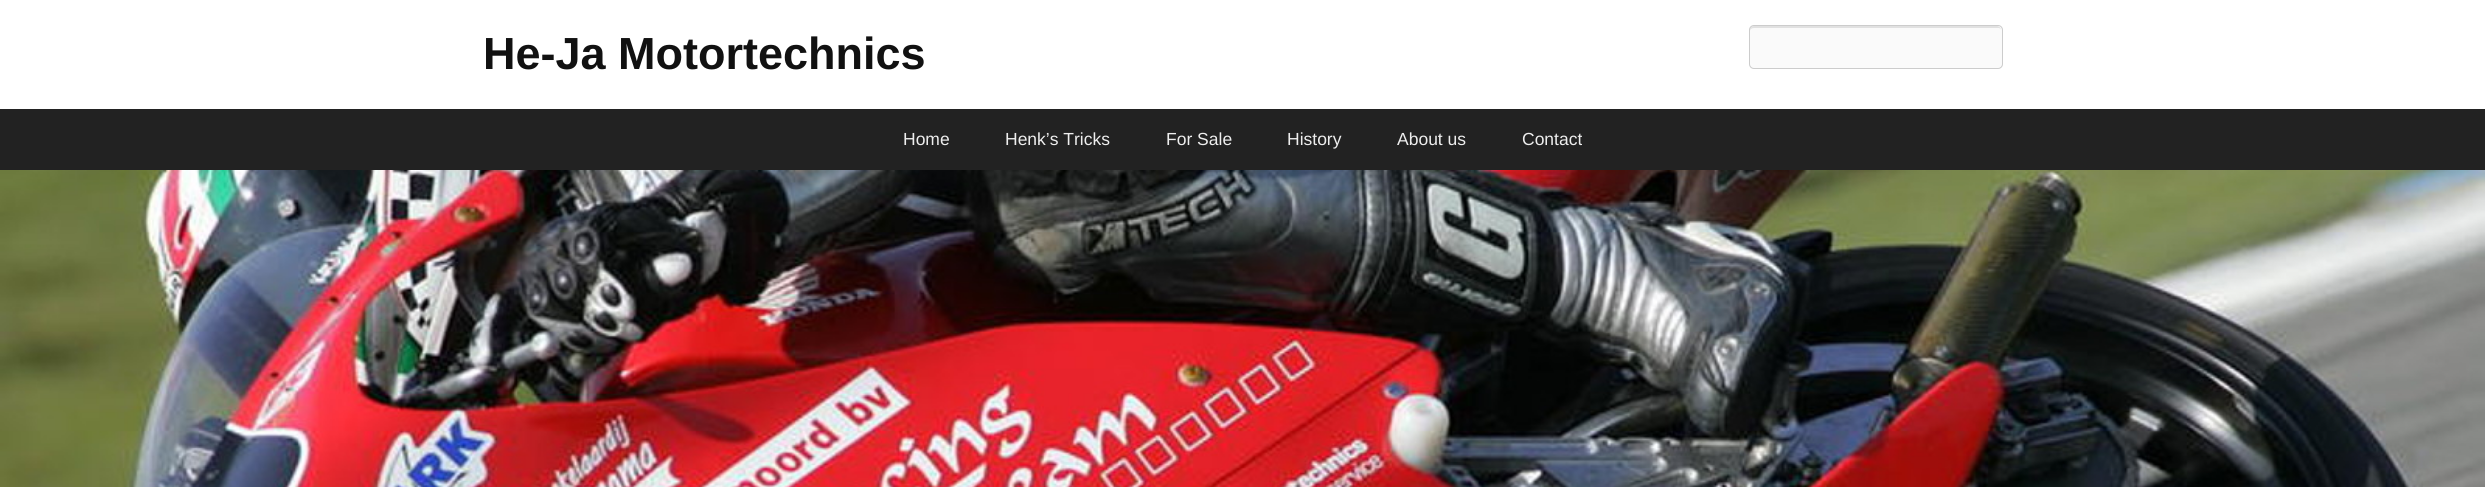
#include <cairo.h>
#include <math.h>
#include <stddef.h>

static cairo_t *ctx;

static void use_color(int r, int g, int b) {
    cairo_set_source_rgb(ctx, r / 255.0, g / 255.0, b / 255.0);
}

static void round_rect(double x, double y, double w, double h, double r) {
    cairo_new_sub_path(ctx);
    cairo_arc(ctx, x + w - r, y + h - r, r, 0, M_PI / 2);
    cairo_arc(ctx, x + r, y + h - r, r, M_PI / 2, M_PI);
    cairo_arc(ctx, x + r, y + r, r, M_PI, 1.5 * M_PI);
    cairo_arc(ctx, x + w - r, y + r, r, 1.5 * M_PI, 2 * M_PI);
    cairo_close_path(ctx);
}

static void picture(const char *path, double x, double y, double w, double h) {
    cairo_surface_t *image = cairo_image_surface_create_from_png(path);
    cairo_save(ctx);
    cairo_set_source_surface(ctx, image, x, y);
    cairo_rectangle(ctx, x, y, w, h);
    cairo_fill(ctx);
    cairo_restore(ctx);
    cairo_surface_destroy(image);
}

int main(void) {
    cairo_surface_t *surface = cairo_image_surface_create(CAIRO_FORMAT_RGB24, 2485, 487);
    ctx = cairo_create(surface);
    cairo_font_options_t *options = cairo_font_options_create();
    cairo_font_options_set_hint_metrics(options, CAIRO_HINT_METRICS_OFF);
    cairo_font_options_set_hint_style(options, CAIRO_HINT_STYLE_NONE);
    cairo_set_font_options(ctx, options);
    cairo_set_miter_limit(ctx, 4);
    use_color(255, 255, 255);
    cairo_paint(ctx);
    cairo_select_font_face(ctx, "Liberation Sans", CAIRO_FONT_SLANT_NORMAL, CAIRO_FONT_WEIGHT_BOLD);
    cairo_set_font_size(ctx, 45);
    use_color(17, 17, 17);
    cairo_move_to(ctx, 483, 69);
    cairo_show_text(ctx, "He-Ja Motortechnics");
    use_color(250, 250, 250);
    round_rect(1749, 25, 254, 44, 5);
    cairo_fill(ctx);
    use_color(225, 225, 225);
    cairo_new_path(ctx);
    cairo_move_to(ctx, 1754, 28);
    cairo_line_to(ctx, 1999, 28);
    cairo_line_to(ctx, 2001, 29);
    cairo_line_to(ctx, 2001, 31);
    cairo_line_to(ctx, 2001, 30);
    cairo_curve_to(ctx, 2001, 28, 1999, 26, 1997, 26);
    cairo_line_to(ctx, 1754, 26);
    cairo_curve_to(ctx, 1752, 26, 1750, 28, 1750, 30);
    cairo_line_to(ctx, 1750, 31);
    cairo_curve_to(ctx, 1750, 29, 1752, 28, 1754, 28);
    cairo_close_path(ctx);
    cairo_fill(ctx);
    round_rect(1749.5, 25.5, 253, 43, 4.5);
    use_color(204, 204, 204);
    cairo_set_line_width(ctx, 1);
    cairo_stroke(ctx);
    use_color(34, 34, 34);
    cairo_rectangle(ctx, 0, 109, 2485, 61);
    cairo_fill(ctx);
    cairo_select_font_face(ctx, "Liberation Sans", CAIRO_FONT_SLANT_NORMAL, CAIRO_FONT_WEIGHT_NORMAL);
    cairo_set_font_size(ctx, 17.5);
    use_color(238, 238, 238);
    cairo_move_to(ctx, 903, 145);
    cairo_show_text(ctx, "Home");
    cairo_move_to(ctx, 1005, 145);
    cairo_show_text(ctx, "Henk’s Tricks");
    cairo_move_to(ctx, 1166, 145);
    cairo_show_text(ctx, "For Sale");
    cairo_move_to(ctx, 1287, 145);
    cairo_show_text(ctx, "History");
    cairo_move_to(ctx, 1397, 145);
    cairo_show_text(ctx, "About us");
    cairo_move_to(ctx, 1522, 145);
    cairo_show_text(ctx, "Contact");
    picture("img1.png", 0, 170, 2485, 317);
    cairo_surface_write_to_png(surface, "result.png");
    cairo_font_options_destroy(options);
    cairo_destroy(ctx);
    cairo_surface_destroy(surface);
    return 0;
}
